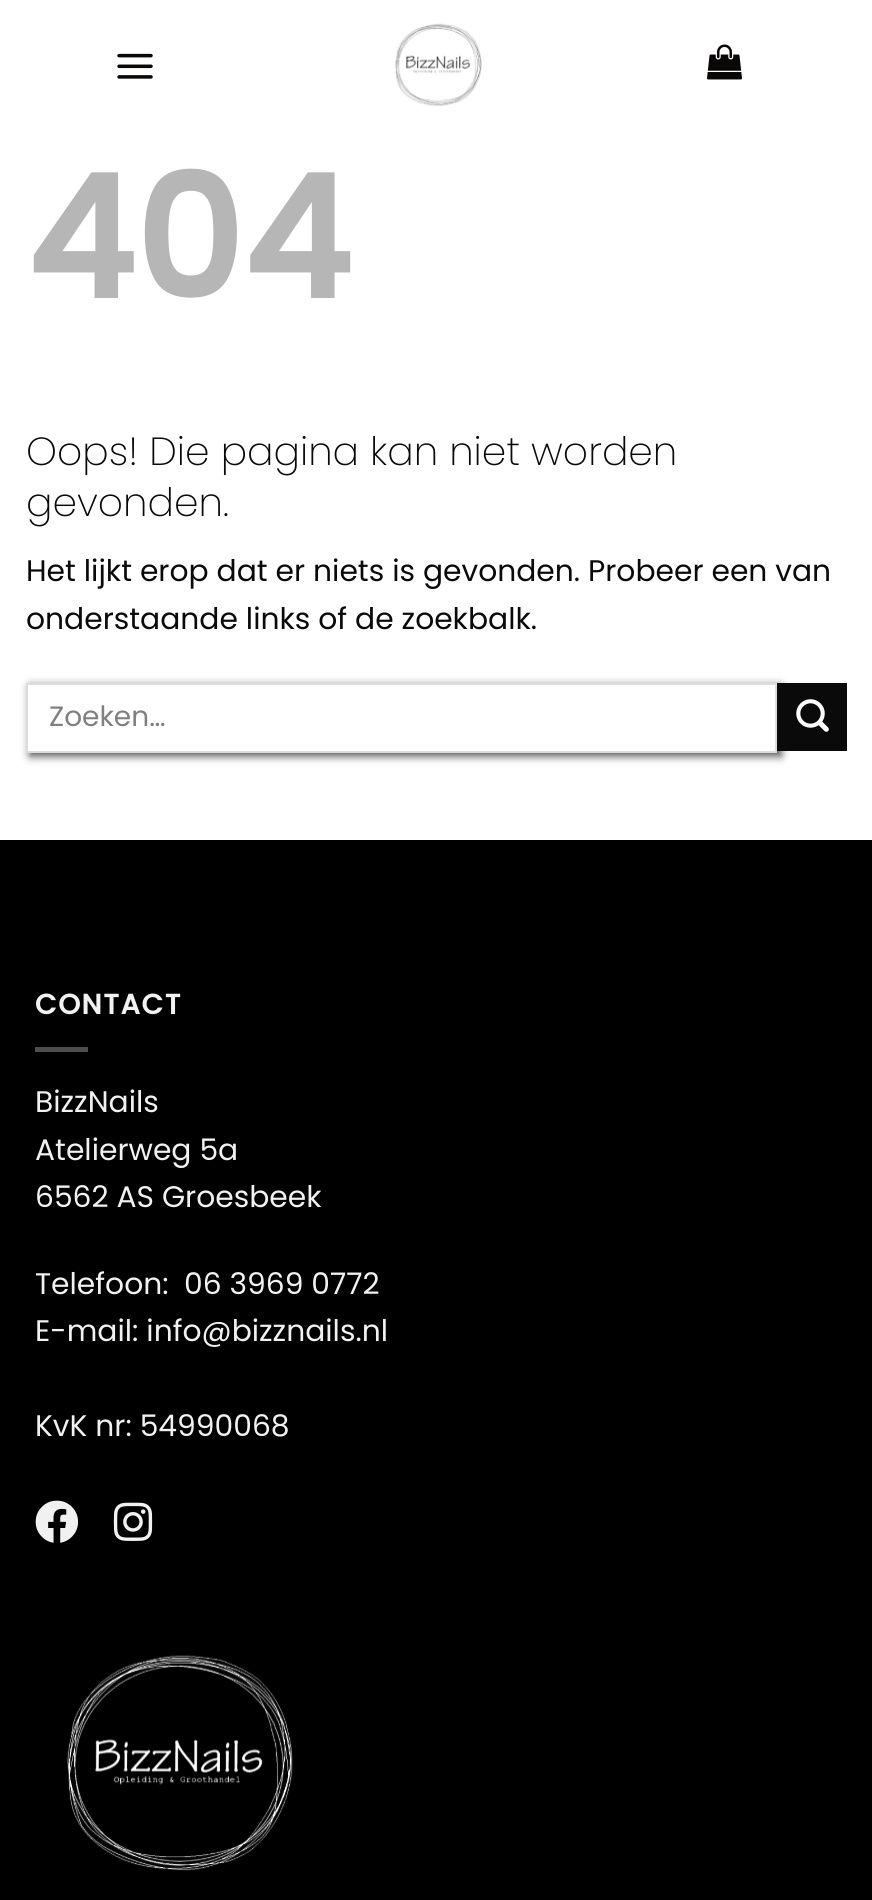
#include <cairo.h>
#include <math.h>
#include <stddef.h>

static cairo_t *ctx;

static void use_color(int r, int g, int b) {
    cairo_set_source_rgb(ctx, r / 255.0, g / 255.0, b / 255.0);
}

static void spaced_text(double x, double y, const char *s, double letter, double word) {
    cairo_move_to(ctx, x, y);
    while (*s) {
        char ch[5] = {0};
        int n = 0;
        do ch[n++] = *s++; while ((*s & 0xC0) == 0x80);
        cairo_show_text(ctx, ch);
        cairo_rel_move_to(ctx, letter + word * (*ch == ' '), 0);
    }
}

static void round_rect(double x, double y, double w, double h, double r) {
    cairo_new_sub_path(ctx);
    cairo_arc(ctx, x + w - r, y + h - r, r, 0, M_PI / 2);
    cairo_arc(ctx, x + r, y + h - r, r, M_PI / 2, M_PI);
    cairo_arc(ctx, x + r, y + r, r, M_PI, 1.5 * M_PI);
    cairo_arc(ctx, x + w - r, y + r, r, 1.5 * M_PI, 2 * M_PI);
    cairo_close_path(ctx);
}

static void shadow(double x, double y, double w, double h, double r, double blur, double alpha) {
    cairo_push_group_with_content(ctx, CAIRO_CONTENT_ALPHA);
    cairo_set_operator(ctx, CAIRO_OPERATOR_SOURCE);
    for (int i = 15; i >= -15 && fmin(w, h) + blur * i / 3 > 0; i -= 2) {
        double e = blur * i / 6;
        cairo_set_source_rgba(ctx, 0, 0, 0, alpha * erfc((i - 1) / 8.5) / 2);
        round_rect(x - e, y - e, w + 2 * e, h + 2 * e, fmax(0, fmin(r + e + blur * .6, fmin(w, h) / 2 + e)));
        cairo_fill(ctx);
    }
    cairo_pattern_t *soft = cairo_pop_group(ctx);
    cairo_mask(ctx, soft);
    cairo_pattern_destroy(soft);
}

static void picture(const char *path, double x, double y, double w, double h) {
    cairo_surface_t *image = cairo_image_surface_create_from_png(path);
    cairo_save(ctx);
    cairo_set_source_surface(ctx, image, x, y);
    cairo_rectangle(ctx, x, y, w, h);
    cairo_fill(ctx);
    cairo_restore(ctx);
    cairo_surface_destroy(image);
}

int main(void) {
    cairo_surface_t *surface = cairo_image_surface_create(CAIRO_FORMAT_RGB24, 872, 1900);
    ctx = cairo_create(surface);
    cairo_font_options_t *options = cairo_font_options_create();
    cairo_font_options_set_hint_metrics(options, CAIRO_HINT_METRICS_OFF);
    cairo_font_options_set_hint_style(options, CAIRO_HINT_STYLE_NONE);
    cairo_set_font_options(ctx, options);
    cairo_set_miter_limit(ctx, 4);
    use_color(255, 255, 255);
    cairo_paint(ctx);
    picture("img1.png", 117, 53, 36, 26);
    picture("img2.png", 395, 23, 87, 84);
    picture("img3.png", 707, 44, 35, 36);
    cairo_select_font_face(ctx, "Poppins", CAIRO_FONT_SLANT_NORMAL, CAIRO_FONT_WEIGHT_BOLD);
    cairo_set_font_size(ctx, 168);
    use_color(182, 182, 182);
    cairo_move_to(ctx, 26, 298);
    cairo_show_text(ctx, "404");
    cairo_select_font_face(ctx, "Poppins ExtraLight", CAIRO_FONT_SLANT_NORMAL, CAIRO_FONT_WEIGHT_NORMAL);
    cairo_set_font_size(ctx, 39.25);
    use_color(10, 10, 10);
    cairo_move_to(ctx, 26, 465);
    cairo_show_text(ctx, "Oops! Die pagina kan niet worden");
    cairo_move_to(ctx, 26, 516);
    cairo_show_text(ctx, "gevonden.");
    cairo_select_font_face(ctx, "Poppins", CAIRO_FONT_SLANT_NORMAL, CAIRO_FONT_WEIGHT_NORMAL);
    cairo_set_font_size(ctx, 29.75);
    cairo_move_to(ctx, 26, 581);
    cairo_show_text(ctx, "Het lijkt erop dat er niets is gevonden. Probeer een van");
    cairo_move_to(ctx, 26, 629);
    cairo_show_text(ctx, "onderstaande links of de zoekbalk.");
    use_color(0, 0, 0);
    shadow(30, 686, 751, 70, 0, 4.5, 0.7);
    use_color(255, 255, 255);
    cairo_rectangle(ctx, 27, 684, 749, 68);
    cairo_fill_preserve(ctx);
    use_color(221, 221, 221);
    cairo_stroke(ctx);
    cairo_set_font_size(ctx, 28);
    use_color(128, 128, 128);
    cairo_move_to(ctx, 49, 726);
    cairo_show_text(ctx, "Zoeken…");
    use_color(10, 10, 10);
    cairo_rectangle(ctx, 777, 683, 70, 68);
    cairo_fill(ctx);
    picture("img4.png", 796, 699, 33, 33);
    use_color(0, 0, 0);
    cairo_rectangle(ctx, 0, 840, 872, 1060);
    cairo_fill(ctx);
    cairo_select_font_face(ctx, "Poppins", CAIRO_FONT_SLANT_NORMAL, CAIRO_FONT_WEIGHT_BOLD);
    use_color(241, 241, 241);
    spaced_text(35, 1014, "CONTACT", 1.5, 0);
    use_color(77, 77, 77);
    cairo_rectangle(ctx, 35, 1047, 53, 5);
    cairo_fill(ctx);
    cairo_select_font_face(ctx, "Poppins", CAIRO_FONT_SLANT_NORMAL, CAIRO_FONT_WEIGHT_NORMAL);
    cairo_set_font_size(ctx, 29.75);
    use_color(241, 241, 241);
    cairo_move_to(ctx, 35, 1112);
    cairo_show_text(ctx, "BizzNails");
    cairo_move_to(ctx, 35, 1160);
    cairo_show_text(ctx, "Atelierweg 5a");
    cairo_move_to(ctx, 35, 1207);
    cairo_show_text(ctx, "6562 AS Groesbeek");
    cairo_move_to(ctx, 35, 1294);
    cairo_show_text(ctx, "Telefoon:");
    cairo_move_to(ctx, 184, 1294);
    cairo_show_text(ctx, "06 3969 0772");
    cairo_move_to(ctx, 35, 1341);
    cairo_show_text(ctx, "E-mail: info@bizznails.nl");
    cairo_move_to(ctx, 35, 1436);
    cairo_show_text(ctx, "KvK nr: 54990068");
    picture("img5.png", 35, 1500, 44, 43);
    picture("img6.png", 113, 1502, 40, 39);
    picture("img7.png", 67, 1655, 226, 216);
    cairo_surface_write_to_png(surface, "result.png");
    cairo_font_options_destroy(options);
    cairo_destroy(ctx);
    cairo_surface_destroy(surface);
    return 0;
}
